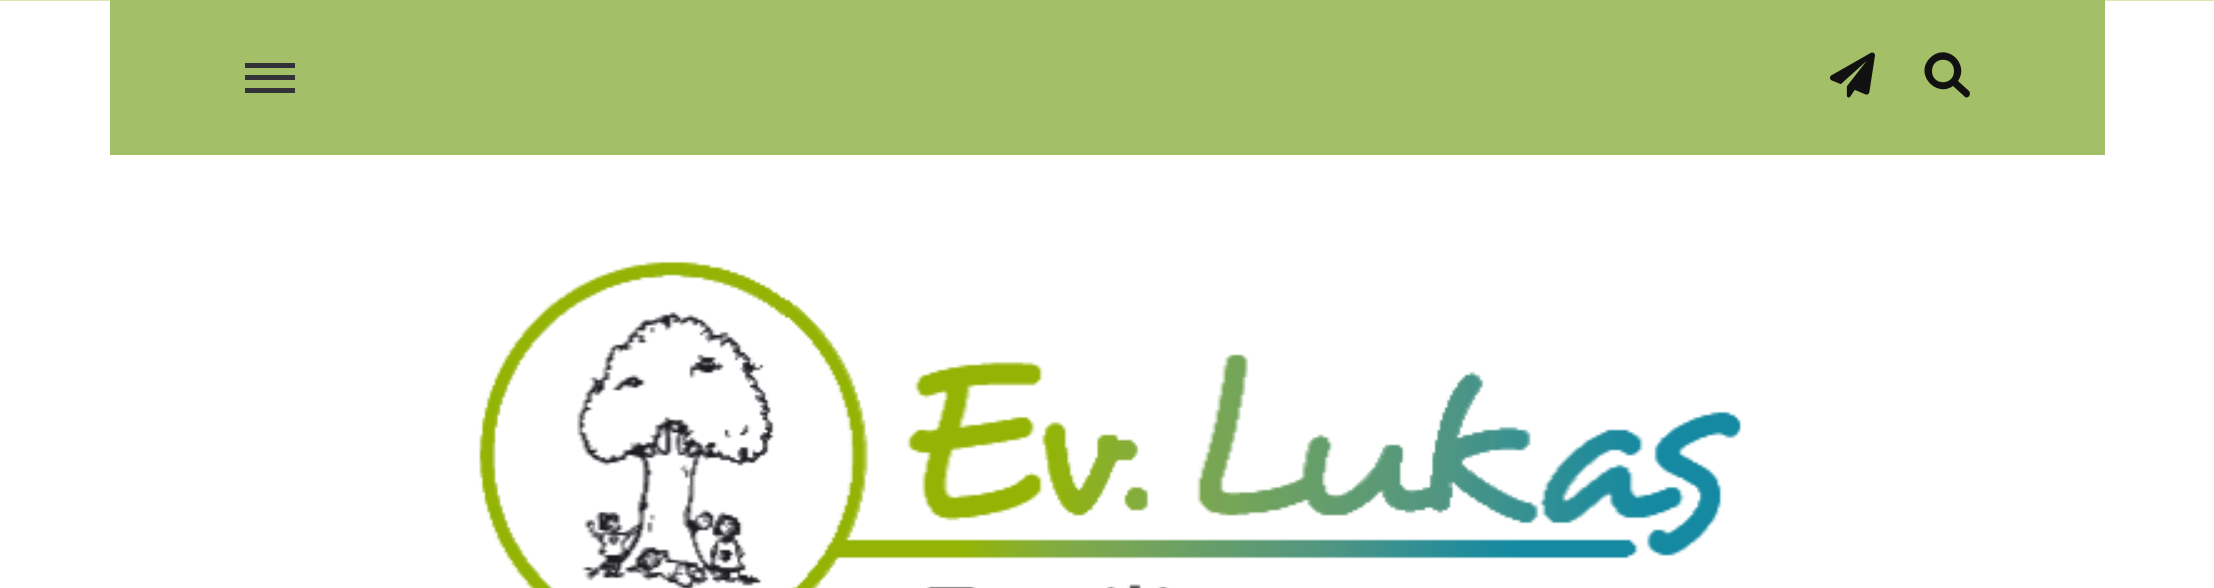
#include <cairo.h>
#include <math.h>
#include <stddef.h>

static cairo_t *ctx;

static void use_color(int r, int g, int b) {
    cairo_set_source_rgb(ctx, r / 255.0, g / 255.0, b / 255.0);
}

static void picture(const char *path, double x, double y, double w, double h) {
    cairo_surface_t *image = cairo_image_surface_create_from_png(path);
    cairo_save(ctx);
    cairo_set_source_surface(ctx, image, x, y);
    cairo_rectangle(ctx, x, y, w, h);
    cairo_fill(ctx);
    cairo_restore(ctx);
    cairo_surface_destroy(image);
}

int main(void) {
    cairo_surface_t *surface = cairo_image_surface_create(CAIRO_FORMAT_RGB24, 2214, 588);
    ctx = cairo_create(surface);
    cairo_font_options_t *options = cairo_font_options_create();
    cairo_font_options_set_hint_metrics(options, CAIRO_HINT_METRICS_OFF);
    cairo_font_options_set_hint_style(options, CAIRO_HINT_STYLE_NONE);
    cairo_set_font_options(ctx, options);
    cairo_set_miter_limit(ctx, 4);
    use_color(255, 255, 255);
    cairo_paint(ctx);
    use_color(221, 231, 176);
    cairo_rectangle(ctx, 0, 0, 2214, 1);
    cairo_fill(ctx);
    use_color(163, 191, 103);
    cairo_rectangle(ctx, 110, 0, 1995, 155);
    cairo_fill(ctx);
    use_color(50, 51, 56);
    cairo_rectangle(ctx, 245, 75, 50, 5);
    cairo_fill(ctx);
    cairo_rectangle(ctx, 245, 63, 50, 5);
    cairo_fill(ctx);
    cairo_rectangle(ctx, 245, 88, 50, 5);
    cairo_fill(ctx);
    picture("img1.png", 1830, 52, 45, 46);
    use_color(17, 17, 17);
    cairo_new_path(ctx);
    cairo_move_to(ctx, 1969, 91);
    cairo_line_to(ctx, 1958, 81);
    cairo_curve_to(ctx, 1970, 63, 1946, 42, 1930, 58);
    cairo_curve_to(ctx, 1914, 74, 1936, 98, 1953, 86);
    cairo_line_to(ctx, 1964, 96);
    cairo_curve_to(ctx, 1967, 100, 1972, 95, 1969, 91);
    cairo_close_path(ctx);
    cairo_move_to(ctx, 1932, 71);
    cairo_curve_to(ctx, 1932, 56, 1954, 56, 1954, 71);
    cairo_curve_to(ctx, 1954, 86, 1932, 86, 1932, 71);
    cairo_close_path(ctx);
    cairo_fill(ctx);
    picture("img2.png", 478, 261, 1263, 327);
    cairo_surface_write_to_png(surface, "result.png");
    cairo_font_options_destroy(options);
    cairo_destroy(ctx);
    cairo_surface_destroy(surface);
    return 0;
}
